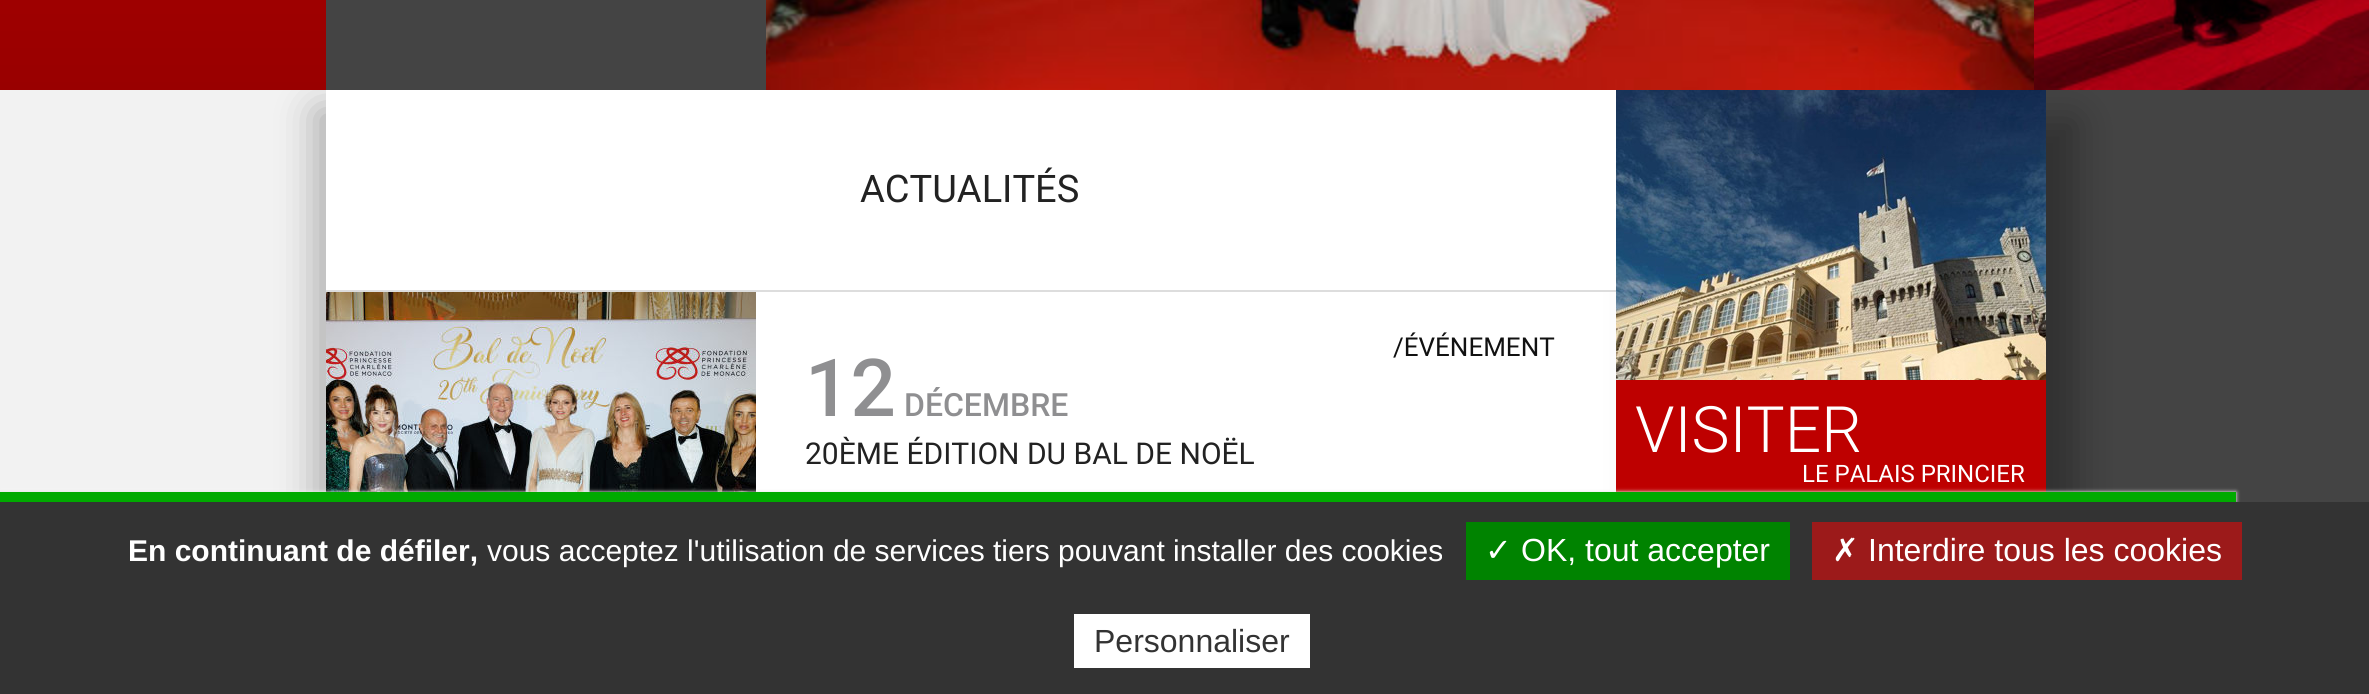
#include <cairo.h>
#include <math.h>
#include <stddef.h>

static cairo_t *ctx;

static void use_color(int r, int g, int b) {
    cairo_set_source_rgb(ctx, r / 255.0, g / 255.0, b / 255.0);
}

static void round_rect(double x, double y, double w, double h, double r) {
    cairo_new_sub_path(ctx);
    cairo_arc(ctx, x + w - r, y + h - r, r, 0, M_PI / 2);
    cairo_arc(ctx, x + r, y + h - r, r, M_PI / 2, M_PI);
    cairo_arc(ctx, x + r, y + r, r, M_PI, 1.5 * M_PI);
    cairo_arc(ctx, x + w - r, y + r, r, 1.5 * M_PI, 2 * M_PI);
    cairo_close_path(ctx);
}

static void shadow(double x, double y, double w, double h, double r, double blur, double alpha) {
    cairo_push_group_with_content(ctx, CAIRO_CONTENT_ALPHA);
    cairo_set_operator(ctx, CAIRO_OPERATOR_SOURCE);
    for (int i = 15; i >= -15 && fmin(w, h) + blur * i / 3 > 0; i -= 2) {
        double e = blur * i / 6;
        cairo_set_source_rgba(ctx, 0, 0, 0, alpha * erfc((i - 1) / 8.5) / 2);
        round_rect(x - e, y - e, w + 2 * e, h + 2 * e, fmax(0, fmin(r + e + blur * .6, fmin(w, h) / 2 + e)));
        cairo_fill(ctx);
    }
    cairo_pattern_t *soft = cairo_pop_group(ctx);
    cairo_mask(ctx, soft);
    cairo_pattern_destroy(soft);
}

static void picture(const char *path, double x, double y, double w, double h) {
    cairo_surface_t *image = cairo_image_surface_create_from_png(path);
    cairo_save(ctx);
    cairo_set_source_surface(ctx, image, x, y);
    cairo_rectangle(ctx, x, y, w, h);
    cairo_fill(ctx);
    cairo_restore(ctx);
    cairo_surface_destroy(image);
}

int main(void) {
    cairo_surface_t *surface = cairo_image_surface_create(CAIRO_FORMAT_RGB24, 2369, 694);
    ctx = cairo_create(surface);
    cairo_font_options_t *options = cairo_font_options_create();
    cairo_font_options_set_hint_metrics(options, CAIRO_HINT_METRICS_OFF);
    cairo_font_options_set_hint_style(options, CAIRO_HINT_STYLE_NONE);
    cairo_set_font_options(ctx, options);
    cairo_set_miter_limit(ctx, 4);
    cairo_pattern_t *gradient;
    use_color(242, 242, 242);
    cairo_paint(ctx);
    use_color(0, 0, 0);
    shadow(316, 110, 1290, 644, 0, 20, 0.3);
    gradient = cairo_pattern_create_linear(1185, -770, 1185, 90);
    cairo_pattern_add_color_stop_rgba(gradient, 0, 0.8, 0, 0, 1);
    cairo_pattern_add_color_stop_rgba(gradient, 1, 0.6, 0, 0, 1);
    cairo_set_source(ctx, gradient);
    cairo_pattern_destroy(gradient);
    cairo_rectangle(ctx, 0, 0, 326, 90);
    cairo_fill(ctx);
    use_color(68, 68, 68);
    cairo_rectangle(ctx, 326, 0, 440, 90);
    cairo_fill(ctx);
    use_color(255, 255, 255);
    cairo_rectangle(ctx, 756, 292, 860, 200);
    cairo_fill(ctx);
    use_color(68, 68, 68);
    cairo_rectangle(ctx, 2046, 90, 323, 412);
    cairo_fill(ctx);
    use_color(0, 0, 0);
    shadow(1646, 120, 430, 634, 0, 20, 0.3);
    picture("img1.png", 766, 0, 1268, 90);
    picture("img2.png", 2034, 0, 335, 90);
    use_color(255, 255, 255);
    cairo_rectangle(ctx, 326, 90, 1290, 200);
    cairo_fill(ctx);
    cairo_select_font_face(ctx, "Roboto", CAIRO_FONT_SLANT_NORMAL, CAIRO_FONT_WEIGHT_NORMAL);
    cairo_set_font_size(ctx, 38);
    use_color(34, 34, 34);
    cairo_move_to(ctx, 860, 202);
    cairo_show_text(ctx, "ACTUALITÉS");
    use_color(221, 221, 221);
    cairo_rectangle(ctx, 326, 290, 1290, 2);
    cairo_fill(ctx);
    picture("img3.png", 326, 292, 430, 200);
    cairo_set_font_size(ctx, 26);
    use_color(17, 17, 17);
    cairo_move_to(ctx, 1393, 356);
    cairo_show_text(ctx, "/ÉVÉNEMENT");
    cairo_select_font_face(ctx, "Roboto Medium", CAIRO_FONT_SLANT_NORMAL, CAIRO_FONT_WEIGHT_NORMAL);
    cairo_set_font_size(ctx, 80);
    use_color(143, 143, 145);
    cairo_move_to(ctx, 805, 416);
    cairo_show_text(ctx, "12");
    cairo_set_font_size(ctx, 32);
    cairo_move_to(ctx, 904, 416);
    cairo_show_text(ctx, "DÉCEMBRE");
    cairo_select_font_face(ctx, "Roboto", CAIRO_FONT_SLANT_NORMAL, CAIRO_FONT_WEIGHT_NORMAL);
    cairo_set_font_size(ctx, 30);
    use_color(34, 34, 34);
    cairo_move_to(ctx, 805, 464);
    cairo_show_text(ctx, "20ÈME ÉDITION DU BAL DE NOËL");
    picture("img4.png", 1616, 90, 430, 290);
    use_color(190, 0, 0);
    cairo_rectangle(ctx, 1616, 380, 430, 112);
    cairo_fill(ctx);
    cairo_select_font_face(ctx, "Roboto Light", CAIRO_FONT_SLANT_NORMAL, CAIRO_FONT_WEIGHT_NORMAL);
    cairo_set_font_size(ctx, 64);
    use_color(255, 255, 255);
    cairo_move_to(ctx, 1635, 452);
    cairo_show_text(ctx, "VISITER");
    cairo_select_font_face(ctx, "Roboto", CAIRO_FONT_SLANT_NORMAL, CAIRO_FONT_WEIGHT_NORMAL);
    cairo_set_font_size(ctx, 24);
    cairo_move_to(ctx, 1802, 482);
    cairo_show_text(ctx, "LE PALAIS PRINCIER");
    use_color(85, 85, 85);
    shadow(0, 494, 2236, 10, 0, 2, 1);
    use_color(255, 255, 255);
    shadow(0, 492, 2236, 10, 0, 2, 1);
    use_color(0, 170, 0);
    cairo_rectangle(ctx, 0, 492, 2236, 10);
    cairo_fill(ctx);
    use_color(51, 51, 51);
    cairo_rectangle(ctx, 0, 502, 2369, 192);
    cairo_fill(ctx);
    cairo_select_font_face(ctx, "Liberation Sans", CAIRO_FONT_SLANT_NORMAL, CAIRO_FONT_WEIGHT_BOLD);
    cairo_set_font_size(ctx, 30);
    use_color(255, 255, 255);
    cairo_move_to(ctx, 128, 561);
    cairo_show_text(ctx, "En continuant de défiler,");
    cairo_select_font_face(ctx, "Liberation Sans", CAIRO_FONT_SLANT_NORMAL, CAIRO_FONT_WEIGHT_NORMAL);
    cairo_move_to(ctx, 487, 561);
    cairo_show_text(ctx, "vous acceptez l'utilisation de services tiers pouvant installer des cookies");
    use_color(0, 131, 0);
    cairo_rectangle(ctx, 1466, 522, 324, 58);
    cairo_fill(ctx);
    cairo_select_font_face(ctx, "DejaVu Sans", CAIRO_FONT_SLANT_NORMAL, CAIRO_FONT_WEIGHT_NORMAL);
    cairo_set_font_size(ctx, 32);
    use_color(255, 255, 255);
    cairo_move_to(ctx, 1485, 561);
    cairo_show_text(ctx, "✓");
    cairo_select_font_face(ctx, "Liberation Sans", CAIRO_FONT_SLANT_NORMAL, CAIRO_FONT_WEIGHT_NORMAL);
    cairo_move_to(ctx, 1521, 561);
    cairo_show_text(ctx, "OK, tout accepter");
    use_color(156, 26, 26);
    cairo_rectangle(ctx, 1812, 522, 430, 58);
    cairo_fill(ctx);
    cairo_select_font_face(ctx, "DejaVu Sans", CAIRO_FONT_SLANT_NORMAL, CAIRO_FONT_WEIGHT_NORMAL);
    use_color(255, 255, 255);
    cairo_move_to(ctx, 1832, 561);
    cairo_show_text(ctx, "✗");
    cairo_select_font_face(ctx, "Liberation Sans", CAIRO_FONT_SLANT_NORMAL, CAIRO_FONT_WEIGHT_NORMAL);
    cairo_move_to(ctx, 1868, 561);
    cairo_show_text(ctx, "Interdire tous les cookies");
    cairo_rectangle(ctx, 1074, 614, 236, 54);
    cairo_fill(ctx);
    use_color(51, 51, 51);
    cairo_move_to(ctx, 1094, 652);
    cairo_show_text(ctx, "Personnaliser");
    cairo_surface_write_to_png(surface, "result.png");
    cairo_font_options_destroy(options);
    cairo_destroy(ctx);
    cairo_surface_destroy(surface);
    return 0;
}
